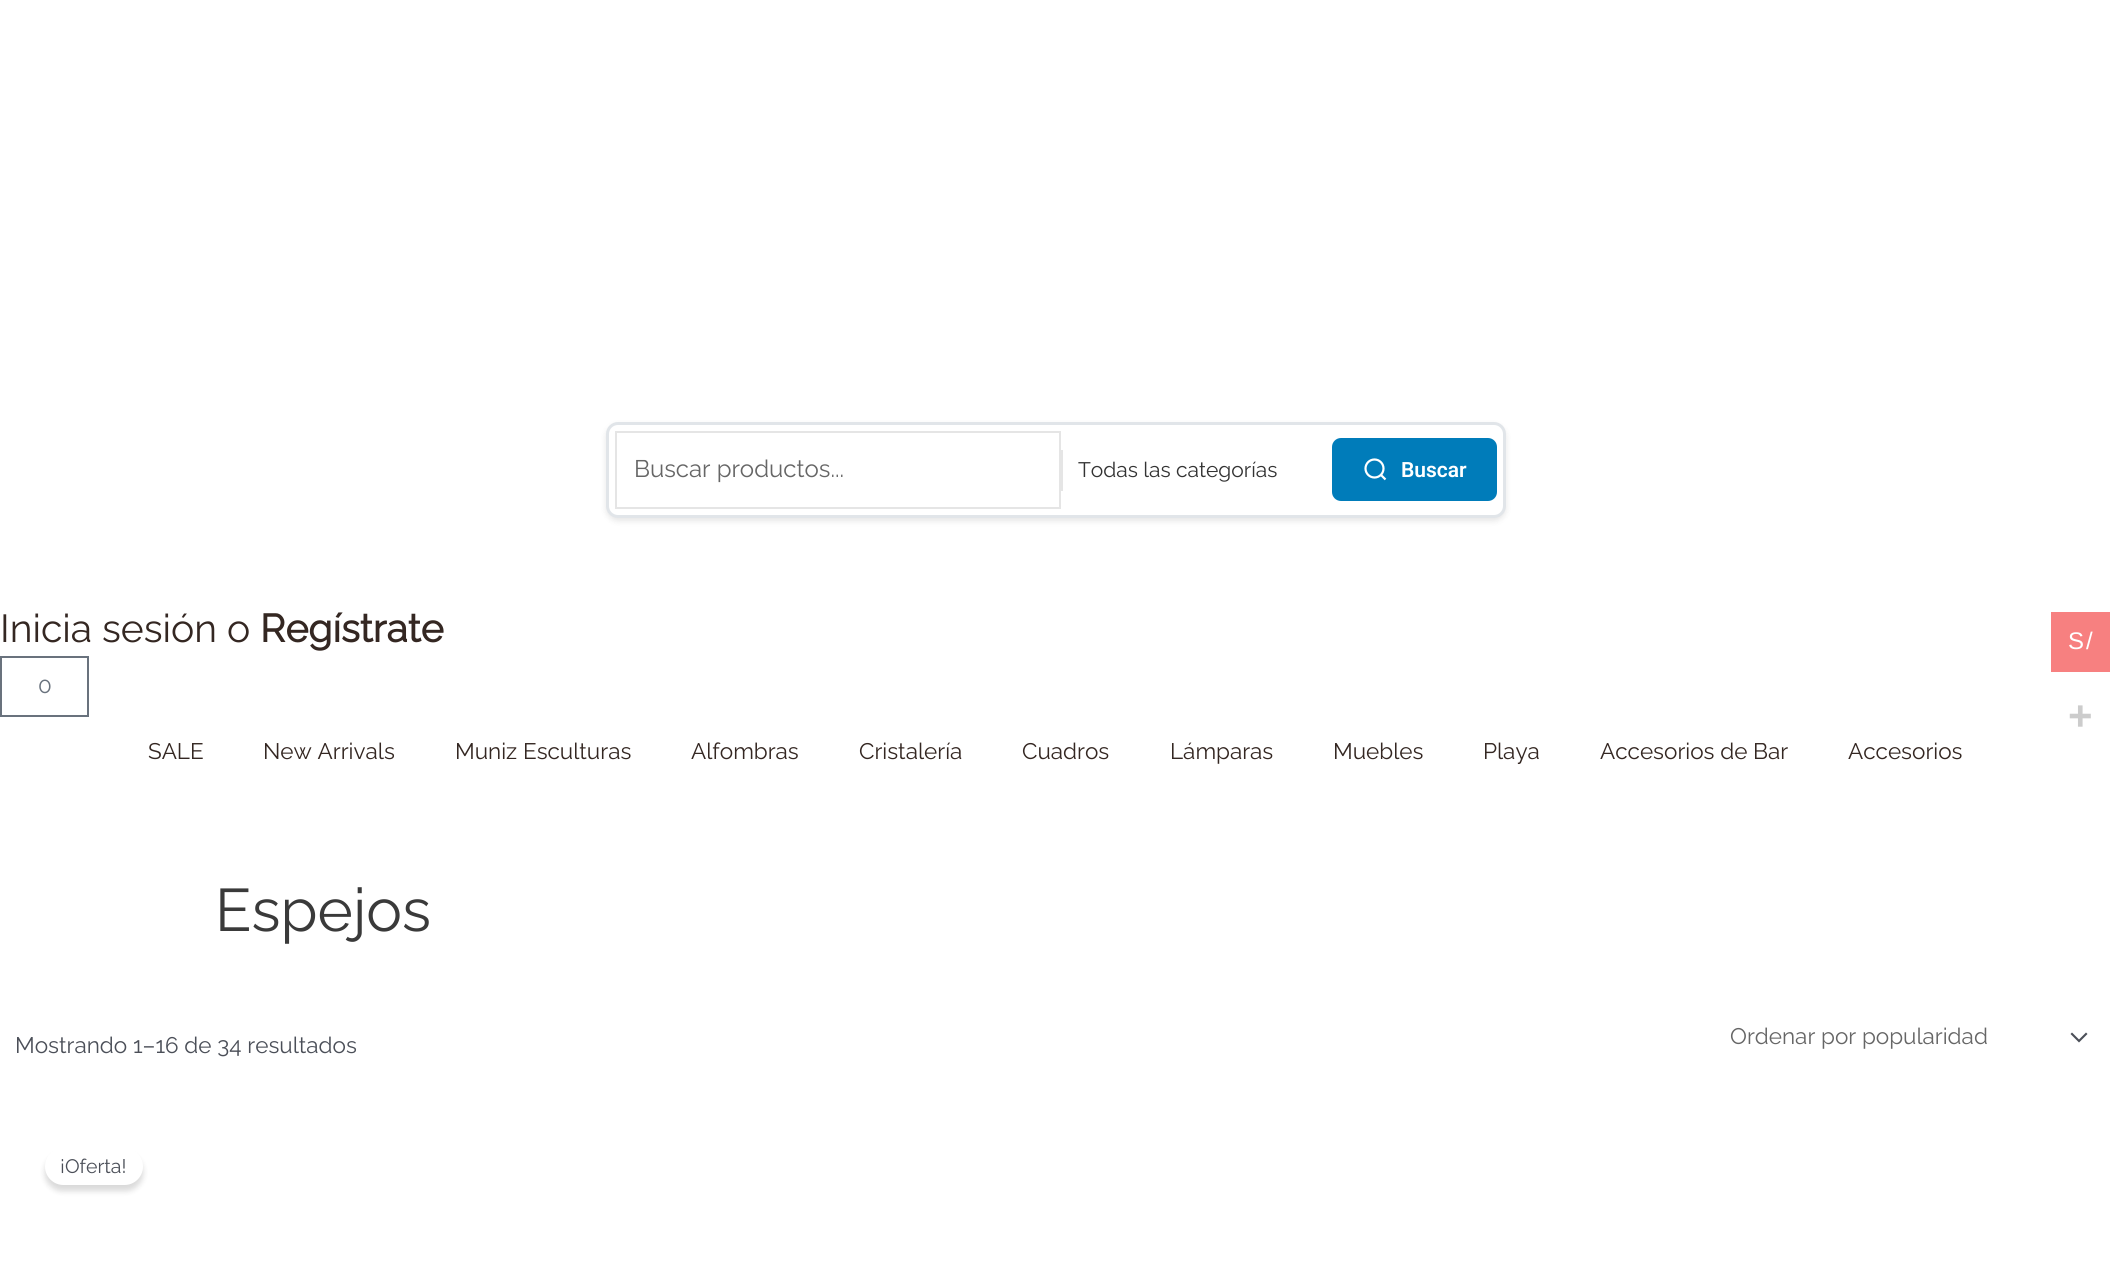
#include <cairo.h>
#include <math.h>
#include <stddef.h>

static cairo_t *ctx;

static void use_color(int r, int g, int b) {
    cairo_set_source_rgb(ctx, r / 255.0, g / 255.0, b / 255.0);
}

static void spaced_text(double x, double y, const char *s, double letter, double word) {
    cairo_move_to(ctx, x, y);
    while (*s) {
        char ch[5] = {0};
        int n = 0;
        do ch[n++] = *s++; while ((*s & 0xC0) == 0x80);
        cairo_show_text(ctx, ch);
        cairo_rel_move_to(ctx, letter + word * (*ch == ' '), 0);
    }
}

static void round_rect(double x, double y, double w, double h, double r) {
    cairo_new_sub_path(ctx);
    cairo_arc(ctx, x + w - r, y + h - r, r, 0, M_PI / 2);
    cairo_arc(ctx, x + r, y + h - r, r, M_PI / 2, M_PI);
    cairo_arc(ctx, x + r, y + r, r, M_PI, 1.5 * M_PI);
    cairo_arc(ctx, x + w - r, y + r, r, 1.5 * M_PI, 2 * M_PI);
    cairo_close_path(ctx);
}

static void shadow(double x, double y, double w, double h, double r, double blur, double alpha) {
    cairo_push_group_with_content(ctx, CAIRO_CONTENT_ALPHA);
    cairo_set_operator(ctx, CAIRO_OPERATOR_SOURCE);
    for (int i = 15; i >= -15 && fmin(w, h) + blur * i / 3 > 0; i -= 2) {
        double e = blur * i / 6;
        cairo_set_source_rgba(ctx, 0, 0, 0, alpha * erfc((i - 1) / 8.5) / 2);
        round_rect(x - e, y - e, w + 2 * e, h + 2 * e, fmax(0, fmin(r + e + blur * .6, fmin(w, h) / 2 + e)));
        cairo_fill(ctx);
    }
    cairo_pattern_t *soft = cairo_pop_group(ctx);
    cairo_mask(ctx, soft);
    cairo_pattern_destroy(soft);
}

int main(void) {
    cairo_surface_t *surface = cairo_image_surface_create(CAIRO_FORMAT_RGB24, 2110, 1276);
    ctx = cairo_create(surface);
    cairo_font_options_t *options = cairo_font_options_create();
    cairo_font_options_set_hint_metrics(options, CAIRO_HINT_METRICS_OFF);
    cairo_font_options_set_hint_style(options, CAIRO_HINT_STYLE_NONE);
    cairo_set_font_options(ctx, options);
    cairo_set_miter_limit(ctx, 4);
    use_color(255, 255, 255);
    cairo_paint(ctx);
    use_color(0, 0, 0);
    shadow(606, 425, 900, 96, 12, 3, 0.1);
    use_color(255, 255, 255);
    round_rect(607.5, 423.5, 897, 93, 10.5);
    cairo_fill_preserve(ctx);
    use_color(225, 229, 233);
    cairo_set_line_width(ctx, 3);
    cairo_stroke(ctx);
    cairo_rectangle(ctx, 616, 432, 444, 76);
    use_color(229, 229, 229);
    cairo_set_line_width(ctx, 2);
    cairo_stroke(ctx);
    cairo_select_font_face(ctx, "Raleway Thin", CAIRO_FONT_SLANT_NORMAL, CAIRO_FONT_WEIGHT_NORMAL);
    cairo_set_font_size(ctx, 24);
    use_color(102, 102, 102);
    cairo_move_to(ctx, 634, 477);
    cairo_show_text(ctx, "Buscar productos...");
    use_color(229, 229, 229);
    cairo_rectangle(ctx, 1061, 450, 2, 41);
    cairo_fill(ctx);
    cairo_set_font_size(ctx, 21);
    use_color(51, 51, 51);
    cairo_move_to(ctx, 1078, 477);
    cairo_show_text(ctx, "Todas las categorías");
    use_color(0, 124, 186);
    round_rect(1332, 438, 165, 63, 9);
    cairo_fill(ctx);
    cairo_arc(ctx, 1374.5, 468.5, 9, 0, 2 * M_PI);
    use_color(255, 255, 255);
    cairo_set_line_width(ctx, 2.2);
    cairo_stroke(ctx);
    cairo_new_path(ctx);
    cairo_move_to(ctx, 1385.5, 479.5);
    cairo_line_to(ctx, 1380.5, 474.5);
    cairo_stroke(ctx);
    cairo_select_font_face(ctx, "Roboto SemiBold", CAIRO_FONT_SLANT_NORMAL, CAIRO_FONT_WEIGHT_NORMAL);
    cairo_move_to(ctx, 1401, 477);
    cairo_show_text(ctx, "Buscar");
    cairo_select_font_face(ctx, "Raleway Thin", CAIRO_FONT_SLANT_NORMAL, CAIRO_FONT_WEIGHT_NORMAL);
    cairo_set_font_size(ctx, 39);
    use_color(52, 39, 34);
    cairo_move_to(ctx, 0, 642);
    cairo_show_text(ctx, "Inicia sesión o");
    cairo_select_font_face(ctx, "Raleway", CAIRO_FONT_SLANT_NORMAL, CAIRO_FONT_WEIGHT_BOLD);
    cairo_move_to(ctx, 260, 642);
    cairo_show_text(ctx, "Regístrate");
    cairo_rectangle(ctx, 1, 657, 87, 59);
    use_color(105, 114, 125);
    cairo_set_line_width(ctx, 2);
    cairo_stroke(ctx);
    cairo_select_font_face(ctx, "Raleway Thin", CAIRO_FONT_SLANT_NORMAL, CAIRO_FONT_WEIGHT_NORMAL);
    cairo_set_font_size(ctx, 22.5);
    cairo_move_to(ctx, 38, 693);
    cairo_show_text(ctx, "0");
    use_color(52, 39, 34);
    cairo_move_to(ctx, 148, 759);
    cairo_show_text(ctx, "SALE");
    cairo_move_to(ctx, 263, 759);
    cairo_show_text(ctx, "New Arrivals");
    cairo_move_to(ctx, 455, 759);
    cairo_show_text(ctx, "Muniz Esculturas");
    cairo_move_to(ctx, 691, 759);
    cairo_show_text(ctx, "Alfombras");
    cairo_move_to(ctx, 859, 759);
    cairo_show_text(ctx, "Cristalería");
    cairo_move_to(ctx, 1022, 759);
    cairo_show_text(ctx, "Cuadros");
    cairo_move_to(ctx, 1170, 759);
    cairo_show_text(ctx, "Lámparas");
    cairo_move_to(ctx, 1333, 759);
    cairo_show_text(ctx, "Muebles");
    cairo_move_to(ctx, 1483, 759);
    cairo_show_text(ctx, "Playa");
    cairo_move_to(ctx, 1600, 759);
    cairo_show_text(ctx, "Accesorios de Bar");
    cairo_move_to(ctx, 1848, 759);
    cairo_show_text(ctx, "Accesorios");
    cairo_set_font_size(ctx, 60);
    use_color(58, 58, 58);
    cairo_move_to(ctx, 215, 931);
    cairo_show_text(ctx, "Espejos");
    cairo_set_font_size(ctx, 22.5);
    use_color(75, 79, 88);
    cairo_move_to(ctx, 15, 1053);
    cairo_show_text(ctx, "Mostrando 1–16 de 34 resultados");
    cairo_new_path(ctx);
    cairo_move_to(ctx, 2070.5, 1034);
    cairo_line_to(ctx, 2079, 1042.5);
    cairo_line_to(ctx, 2087.5, 1034);
    cairo_line_to(ctx, 2086, 1032.5);
    cairo_line_to(ctx, 2079, 1039.5);
    cairo_line_to(ctx, 2072, 1032.5);
    cairo_close_path(ctx);
    cairo_fill(ctx);
    use_color(102, 102, 102);
    cairo_move_to(ctx, 1730, 1044);
    cairo_show_text(ctx, "Ordenar por popularidad");
    use_color(0, 0, 0);
    shadow(45, 1154, 98, 37, 18.5, 3, 0.15);
    use_color(255, 255, 255);
    round_rect(45, 1148, 98, 37, 18.5);
    cairo_fill(ctx);
    cairo_set_font_size(ctx, 19.5);
    use_color(75, 79, 88);
    cairo_move_to(ctx, 60, 1173);
    cairo_show_text(ctx, "¡Oferta!");
    use_color(247, 128, 128);
    cairo_rectangle(ctx, 2051, 612, 59, 60);
    cairo_fill(ctx);
    cairo_select_font_face(ctx, "Liberation Sans", CAIRO_FONT_SLANT_NORMAL, CAIRO_FONT_WEIGHT_NORMAL);
    cairo_set_font_size(ctx, 24);
    use_color(255, 255, 255);
    spaced_text(2068, 649, "S/", 2, 0);
    cairo_select_font_face(ctx, "Liberation Sans", CAIRO_FONT_SLANT_NORMAL, CAIRO_FONT_WEIGHT_BOLD);
    cairo_set_font_size(ctx, 42);
    use_color(204, 204, 204);
    cairo_move_to(ctx, 2068, 730);
    cairo_show_text(ctx, "+");
    cairo_surface_write_to_png(surface, "result.png");
    cairo_font_options_destroy(options);
    cairo_destroy(ctx);
    cairo_surface_destroy(surface);
    return 0;
}
